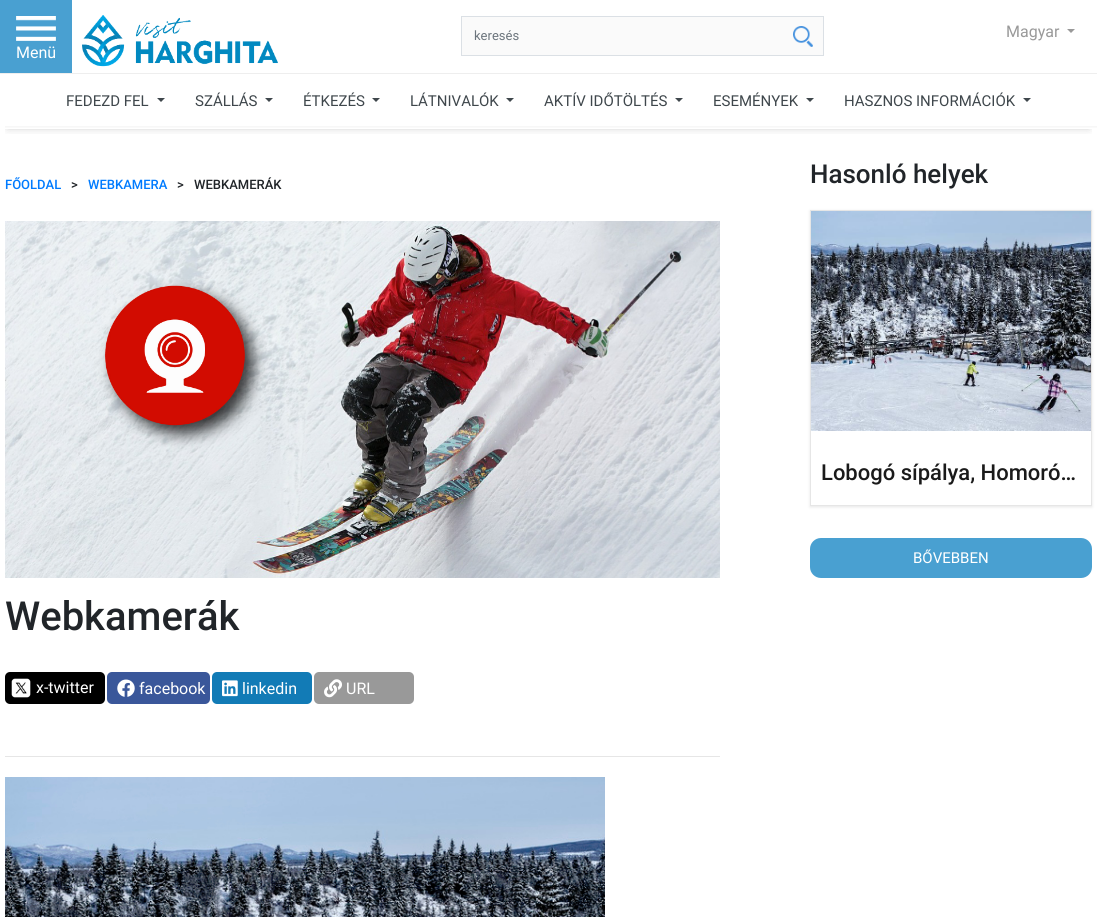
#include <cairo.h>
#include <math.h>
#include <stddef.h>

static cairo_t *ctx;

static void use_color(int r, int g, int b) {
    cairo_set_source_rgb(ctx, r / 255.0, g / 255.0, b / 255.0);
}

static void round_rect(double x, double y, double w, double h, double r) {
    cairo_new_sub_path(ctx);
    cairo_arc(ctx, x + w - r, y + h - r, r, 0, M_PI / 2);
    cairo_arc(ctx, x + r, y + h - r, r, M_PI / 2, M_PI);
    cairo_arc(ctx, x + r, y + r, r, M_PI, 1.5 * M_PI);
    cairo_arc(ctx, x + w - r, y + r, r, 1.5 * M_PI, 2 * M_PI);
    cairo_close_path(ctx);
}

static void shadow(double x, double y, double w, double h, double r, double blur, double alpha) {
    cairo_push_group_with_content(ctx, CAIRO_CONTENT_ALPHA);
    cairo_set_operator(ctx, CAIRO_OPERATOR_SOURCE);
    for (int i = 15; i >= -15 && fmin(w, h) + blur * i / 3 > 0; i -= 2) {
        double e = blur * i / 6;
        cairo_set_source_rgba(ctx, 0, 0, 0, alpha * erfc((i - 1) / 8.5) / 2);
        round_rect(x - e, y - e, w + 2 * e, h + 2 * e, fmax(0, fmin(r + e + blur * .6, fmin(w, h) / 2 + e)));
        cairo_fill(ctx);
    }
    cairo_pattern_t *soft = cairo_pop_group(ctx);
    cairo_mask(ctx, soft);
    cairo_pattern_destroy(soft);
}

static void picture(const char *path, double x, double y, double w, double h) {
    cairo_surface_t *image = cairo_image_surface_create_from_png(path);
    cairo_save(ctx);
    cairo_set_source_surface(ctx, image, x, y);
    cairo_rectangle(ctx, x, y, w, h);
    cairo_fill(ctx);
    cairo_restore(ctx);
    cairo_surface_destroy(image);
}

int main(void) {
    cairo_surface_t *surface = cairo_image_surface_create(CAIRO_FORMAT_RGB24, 1097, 917);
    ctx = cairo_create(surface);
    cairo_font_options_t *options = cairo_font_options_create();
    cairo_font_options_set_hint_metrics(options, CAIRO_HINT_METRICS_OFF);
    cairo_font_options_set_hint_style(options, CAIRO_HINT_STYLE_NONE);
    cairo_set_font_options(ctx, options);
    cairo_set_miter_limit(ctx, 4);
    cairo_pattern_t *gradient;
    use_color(255, 255, 255);
    cairo_paint(ctx);
    picture("img1.png", 82, 15, 196, 52);
    use_color(250, 250, 250);
    cairo_rectangle(ctx, 462, 17, 361, 38);
    cairo_fill(ctx);
    picture("img2.png", 793, 26, 20, 21);
    cairo_rectangle(ctx, 461.5, 16.5, 362, 39);
    use_color(219, 224, 229);
    cairo_set_line_width(ctx, 1);
    cairo_stroke(ctx);
    cairo_select_font_face(ctx, "Roboto", CAIRO_FONT_SLANT_NORMAL, CAIRO_FONT_WEIGHT_NORMAL);
    cairo_set_font_size(ctx, 13);
    use_color(108, 117, 125);
    cairo_move_to(ctx, 474, 40);
    cairo_show_text(ctx, "keresés");
    cairo_set_font_size(ctx, 16);
    use_color(153, 153, 153);
    cairo_move_to(ctx, 1006, 37);
    cairo_show_text(ctx, "Magyar");
    cairo_new_path(ctx);
    cairo_move_to(ctx, 1067, 29);
    cairo_line_to(ctx, 1075, 29);
    cairo_line_to(ctx, 1071, 33);
    cairo_close_path(ctx);
    cairo_fill(ctx);
    use_color(73, 160, 209);
    cairo_rectangle(ctx, 0, 0, 72, 73);
    cairo_fill(ctx);
    picture("img3.png", 16, 16, 40, 25);
    use_color(255, 255, 255);
    cairo_move_to(ctx, 16, 58);
    cairo_show_text(ctx, "Menü");
    cairo_save(ctx);
    cairo_rectangle(ctx, 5, 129, 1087, 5);
    cairo_clip(ctx);
    use_color(17, 17, 17);
    shadow(8, 106, 1081, 20, 0, 5, 0.34);
    cairo_restore(ctx);
    use_color(238, 238, 238);
    cairo_rectangle(ctx, 0, 73, 1097, 1);
    cairo_fill(ctx);
    cairo_set_font_size(ctx, 15);
    use_color(63, 71, 76);
    cairo_move_to(ctx, 66, 106);
    cairo_show_text(ctx, "FEDEZD FEL");
    cairo_new_path(ctx);
    cairo_move_to(ctx, 157, 98);
    cairo_line_to(ctx, 165, 98);
    cairo_line_to(ctx, 161, 102);
    cairo_close_path(ctx);
    cairo_fill(ctx);
    cairo_move_to(ctx, 195, 106);
    cairo_show_text(ctx, "SZÁLLÁS");
    cairo_new_path(ctx);
    cairo_move_to(ctx, 265, 98);
    cairo_line_to(ctx, 273, 98);
    cairo_line_to(ctx, 269, 102);
    cairo_close_path(ctx);
    cairo_fill(ctx);
    cairo_move_to(ctx, 303, 106);
    cairo_show_text(ctx, "ÉTKEZÉS");
    cairo_new_path(ctx);
    cairo_move_to(ctx, 372, 98);
    cairo_line_to(ctx, 380, 98);
    cairo_line_to(ctx, 376, 102);
    cairo_close_path(ctx);
    cairo_fill(ctx);
    cairo_move_to(ctx, 410, 106);
    cairo_show_text(ctx, "LÁTNIVALÓK");
    cairo_new_path(ctx);
    cairo_move_to(ctx, 506, 98);
    cairo_line_to(ctx, 514, 98);
    cairo_line_to(ctx, 510, 102);
    cairo_close_path(ctx);
    cairo_fill(ctx);
    cairo_move_to(ctx, 544, 106);
    cairo_show_text(ctx, "AKTÍV IDŐTÖLTÉS");
    cairo_new_path(ctx);
    cairo_move_to(ctx, 675, 98);
    cairo_line_to(ctx, 683, 98);
    cairo_line_to(ctx, 679, 102);
    cairo_close_path(ctx);
    cairo_fill(ctx);
    cairo_move_to(ctx, 713, 106);
    cairo_show_text(ctx, "ESEMÉNYEK");
    cairo_new_path(ctx);
    cairo_move_to(ctx, 806, 98);
    cairo_line_to(ctx, 814, 98);
    cairo_line_to(ctx, 810, 102);
    cairo_close_path(ctx);
    cairo_fill(ctx);
    cairo_move_to(ctx, 844, 106);
    cairo_show_text(ctx, "HASZNOS INFORMÁCIÓK");
    cairo_new_path(ctx);
    cairo_move_to(ctx, 1023, 98);
    cairo_line_to(ctx, 1031, 98);
    cairo_line_to(ctx, 1027, 102);
    cairo_close_path(ctx);
    cairo_fill(ctx);
    gradient = cairo_pattern_create_linear(564, 126, 564, 129);
    cairo_pattern_add_color_stop_rgba(gradient, 0.39, 0.969, 0.969, 0.969, 1);
    cairo_pattern_add_color_stop_rgba(gradient, 0.75, 1, 1, 1, 1);
    cairo_set_source(ctx, gradient);
    cairo_pattern_destroy(gradient);
    cairo_rectangle(ctx, 5, 126, 1092, 2);
    cairo_fill(ctx);
    cairo_select_font_face(ctx, "Roboto Medium", CAIRO_FONT_SLANT_NORMAL, CAIRO_FONT_WEIGHT_NORMAL);
    cairo_set_font_size(ctx, 13);
    use_color(0, 123, 255);
    cairo_move_to(ctx, 5, 189);
    cairo_show_text(ctx, "FŐOLDAL");
    use_color(33, 37, 41);
    cairo_move_to(ctx, 71, 189);
    cairo_show_text(ctx, ">");
    use_color(0, 123, 255);
    cairo_move_to(ctx, 88, 189);
    cairo_show_text(ctx, "WEBKAMERA");
    use_color(33, 37, 41);
    cairo_move_to(ctx, 177, 189);
    cairo_show_text(ctx, ">");
    cairo_move_to(ctx, 194, 189);
    cairo_show_text(ctx, "WEBKAMERÁK");
    picture("img4.png", 5, 221, 715, 357);
    cairo_set_font_size(ctx, 40);
    cairo_move_to(ctx, 5, 630);
    cairo_show_text(ctx, "Webkamerák");
    use_color(0, 0, 0);
    round_rect(5, 672, 100, 32, 5);
    cairo_fill(ctx);
    picture("img5.png", 11, 678, 20, 20);
    cairo_select_font_face(ctx, "Roboto", CAIRO_FONT_SLANT_NORMAL, CAIRO_FONT_WEIGHT_NORMAL);
    cairo_set_font_size(ctx, 16);
    use_color(255, 255, 255);
    cairo_move_to(ctx, 36, 693);
    cairo_show_text(ctx, "x-twitter");
    use_color(58, 87, 154);
    round_rect(107, 672, 103, 32, 5);
    cairo_fill(ctx);
    picture("img6.png", 117, 679, 18, 18);
    use_color(255, 255, 255);
    cairo_move_to(ctx, 139, 694);
    cairo_show_text(ctx, "facebook");
    use_color(18, 123, 182);
    round_rect(212, 672, 100, 32, 5);
    cairo_fill(ctx);
    picture("img7.png", 222, 680, 16, 17);
    use_color(255, 255, 255);
    cairo_move_to(ctx, 242, 694);
    cairo_show_text(ctx, "linkedin");
    use_color(153, 153, 153);
    round_rect(314, 672, 100, 32, 5);
    cairo_fill(ctx);
    picture("img8.png", 324, 679, 18, 19);
    use_color(255, 255, 255);
    cairo_move_to(ctx, 346, 694);
    cairo_show_text(ctx, "URL");
    use_color(230, 230, 230);
    cairo_rectangle(ctx, 5, 756, 715, 1);
    cairo_fill(ctx);
    picture("img9.png", 5, 777, 600, 140);
    cairo_select_font_face(ctx, "Roboto Medium", CAIRO_FONT_SLANT_NORMAL, CAIRO_FONT_WEIGHT_NORMAL);
    cairo_set_font_size(ctx, 26);
    use_color(33, 37, 41);
    cairo_move_to(ctx, 810, 183);
    cairo_show_text(ctx, "Hasonló helyek");
    cairo_save(ctx);
    cairo_set_fill_rule(ctx, CAIRO_FILL_RULE_EVEN_ODD);
    cairo_new_path(ctx);
    cairo_move_to(ctx, 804, 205);
    cairo_line_to(ctx, 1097, 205);
    cairo_line_to(ctx, 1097, 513);
    cairo_line_to(ctx, 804, 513);
    cairo_close_path(ctx);
    cairo_move_to(ctx, 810, 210);
    cairo_line_to(ctx, 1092, 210);
    cairo_line_to(ctx, 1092, 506);
    cairo_line_to(ctx, 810, 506);
    cairo_close_path(ctx);
    cairo_clip(ctx);
    use_color(230, 230, 230);
    shadow(810, 211, 282, 296, 0, 1.5, 1);
    cairo_restore(ctx);
    cairo_rectangle(ctx, 810.5, 210.5, 281, 295);
    use_color(230, 230, 230);
    cairo_stroke(ctx);
    picture("img10.png", 811, 211, 280, 220);
    cairo_set_font_size(ctx, 22);
    use_color(26, 26, 26);
    cairo_move_to(ctx, 821, 480);
    cairo_show_text(ctx, "Lobogó sípálya, Homoró…");
    use_color(73, 160, 209);
    round_rect(810, 538, 282, 40, 11);
    cairo_fill(ctx);
    cairo_select_font_face(ctx, "Roboto", CAIRO_FONT_SLANT_NORMAL, CAIRO_FONT_WEIGHT_NORMAL);
    cairo_set_font_size(ctx, 15);
    use_color(255, 255, 255);
    cairo_move_to(ctx, 913, 563);
    cairo_show_text(ctx, "BŐVEBBEN");
    cairo_surface_write_to_png(surface, "result.png");
    cairo_font_options_destroy(options);
    cairo_destroy(ctx);
    cairo_surface_destroy(surface);
    return 0;
}
